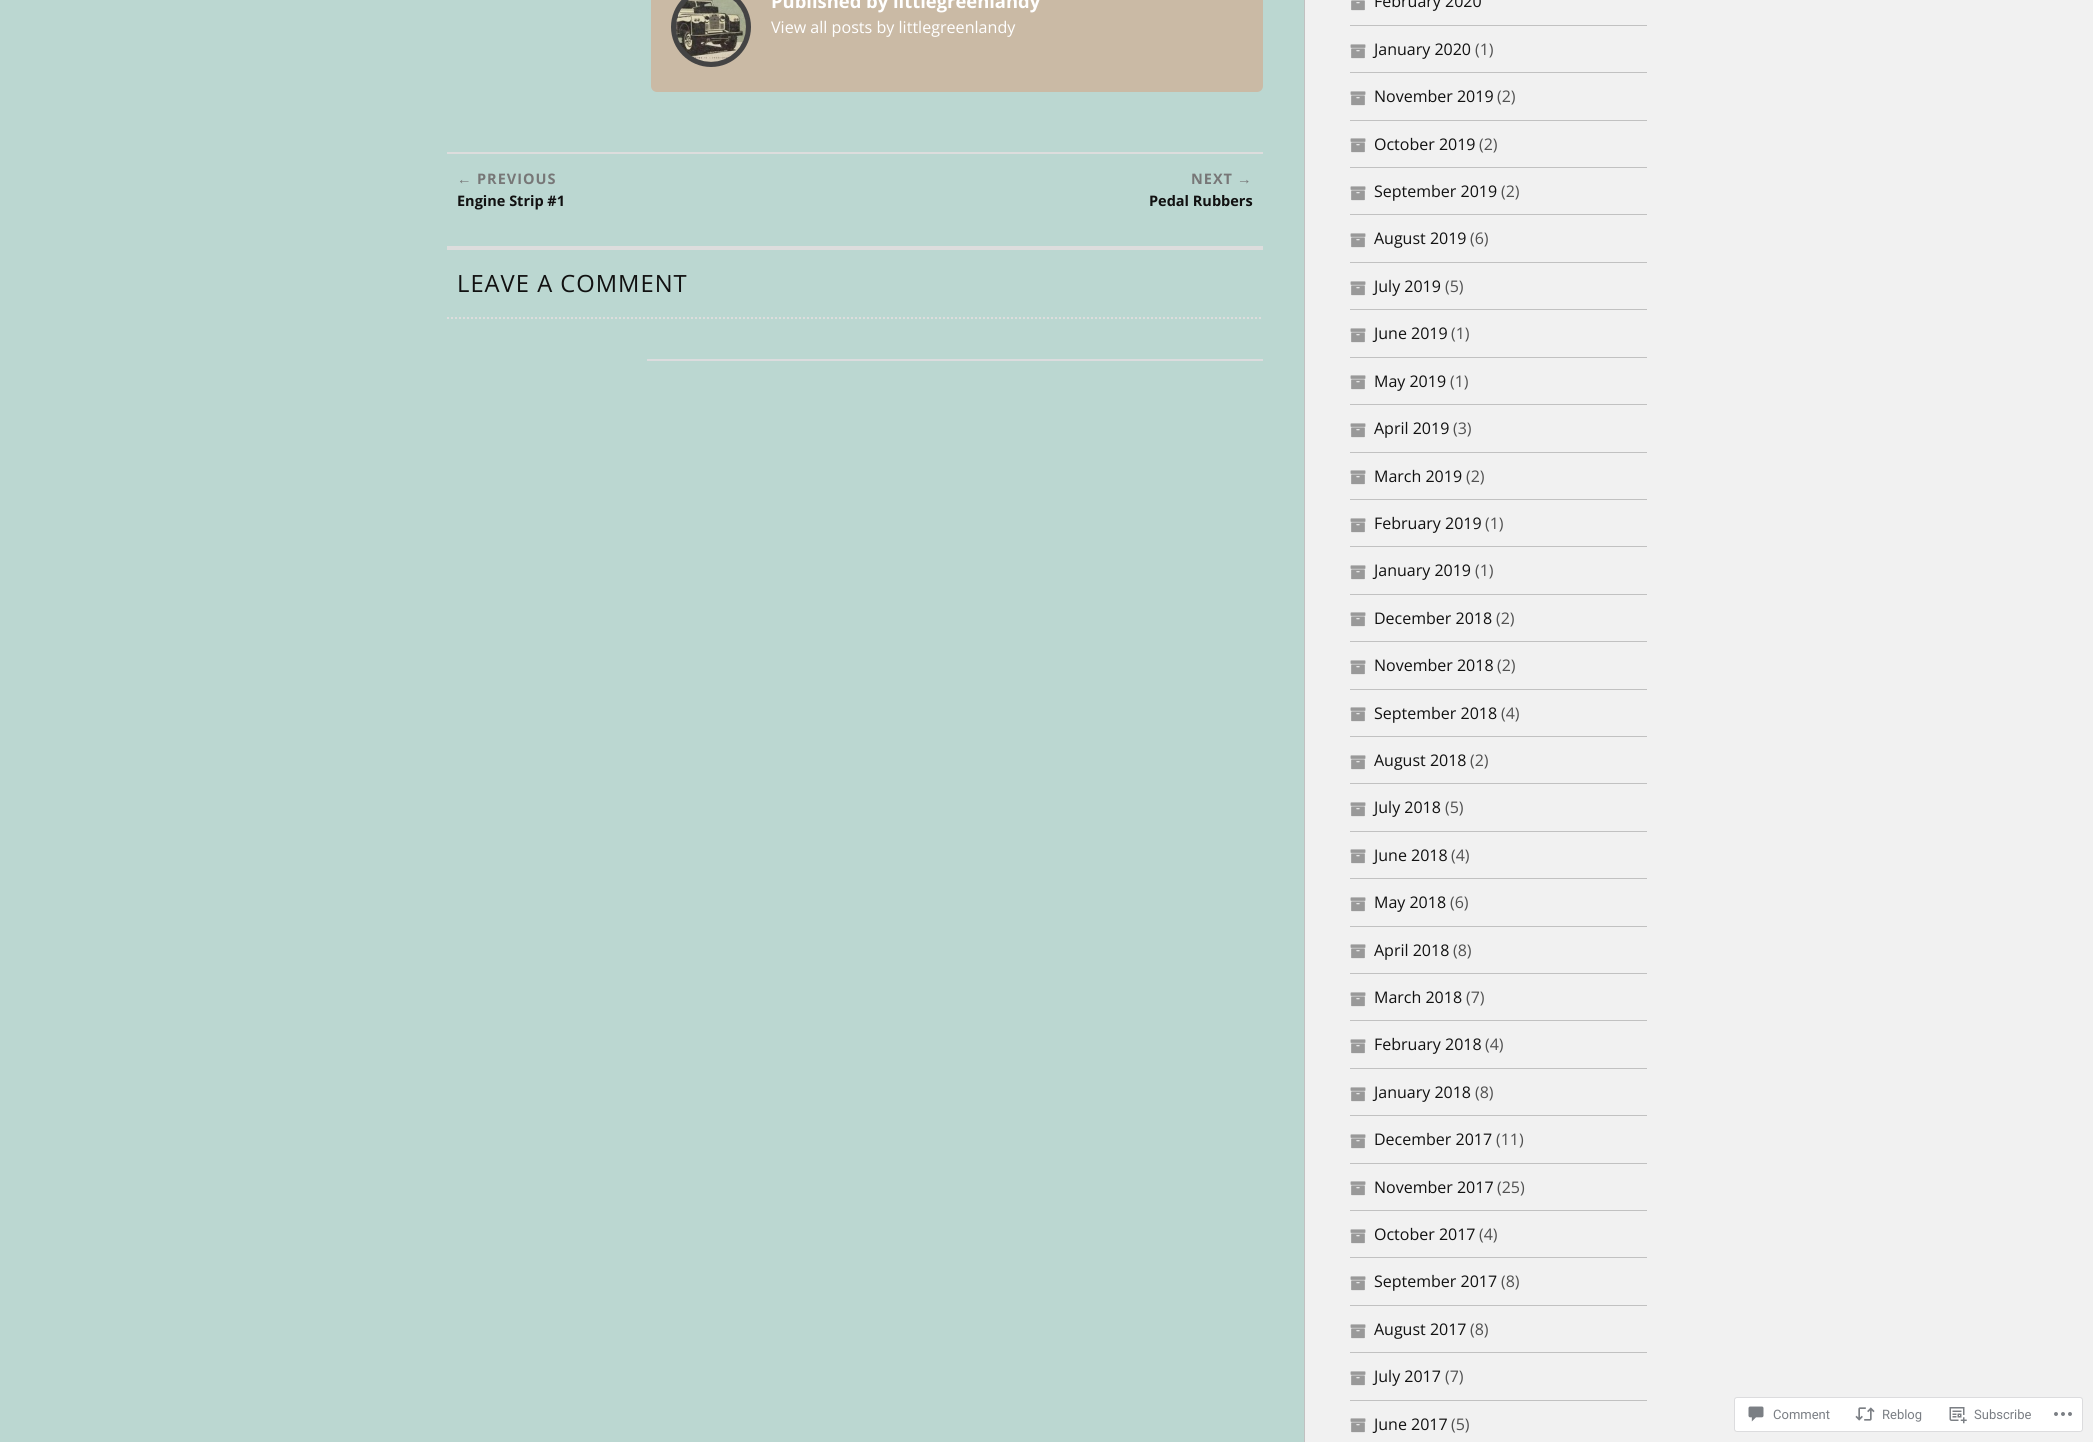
#include <cairo.h>
#include <math.h>
#include <stddef.h>

static cairo_t *ctx;

static void use_color(int r, int g, int b) {
    cairo_set_source_rgb(ctx, r / 255.0, g / 255.0, b / 255.0);
}

static void spaced_text(double x, double y, const char *s, double letter, double word) {
    cairo_move_to(ctx, x, y);
    while (*s) {
        char ch[5] = {0};
        int n = 0;
        do ch[n++] = *s++; while ((*s & 0xC0) == 0x80);
        cairo_show_text(ctx, ch);
        cairo_rel_move_to(ctx, letter + word * (*ch == ' '), 0);
    }
}

static void round_rect(double x, double y, double w, double h, double r) {
    cairo_new_sub_path(ctx);
    cairo_arc(ctx, x + w - r, y + h - r, r, 0, M_PI / 2);
    cairo_arc(ctx, x + r, y + h - r, r, M_PI / 2, M_PI);
    cairo_arc(ctx, x + r, y + r, r, M_PI, 1.5 * M_PI);
    cairo_arc(ctx, x + w - r, y + r, r, 1.5 * M_PI, 2 * M_PI);
    cairo_close_path(ctx);
}

static void picture(const char *path, double x, double y, double w, double h) {
    cairo_surface_t *image = cairo_image_surface_create_from_png(path);
    cairo_save(ctx);
    cairo_set_source_surface(ctx, image, x, y);
    cairo_rectangle(ctx, x, y, w, h);
    cairo_fill(ctx);
    cairo_restore(ctx);
    cairo_surface_destroy(image);
}

int main(void) {
    cairo_surface_t *surface = cairo_image_surface_create(CAIRO_FORMAT_RGB24, 2093, 1442);
    ctx = cairo_create(surface);
    cairo_font_options_t *options = cairo_font_options_create();
    cairo_font_options_set_hint_metrics(options, CAIRO_HINT_METRICS_OFF);
    cairo_font_options_set_hint_style(options, CAIRO_HINT_STYLE_NONE);
    cairo_set_font_options(ctx, options);
    cairo_set_miter_limit(ctx, 4);
    use_color(241, 241, 241);
    cairo_paint(ctx);
    use_color(187, 215, 209);
    cairo_rectangle(ctx, 0, 0, 1304, 1442);
    cairo_fill(ctx);
    use_color(202, 186, 165);
    round_rect(651, -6, 612, 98, 6);
    cairo_fill(ctx);
    use_color(68, 68, 68);
    cairo_arc(ctx, 711, 27, 40, 0, 2 * M_PI);
    cairo_fill(ctx);
    picture("img1.png", 676, 0, 70, 62);
    cairo_select_font_face(ctx, "Open Sans", CAIRO_FONT_SLANT_NORMAL, CAIRO_FONT_WEIGHT_BOLD);
    cairo_set_font_size(ctx, 18.4);
    use_color(255, 255, 255);
    cairo_move_to(ctx, 771, 8);
    cairo_show_text(ctx, "Published by littlegreenlandy");
    cairo_select_font_face(ctx, "Open Sans", CAIRO_FONT_SLANT_NORMAL, CAIRO_FONT_WEIGHT_NORMAL);
    cairo_set_font_size(ctx, 16.1);
    cairo_move_to(ctx, 771, 33);
    cairo_show_text(ctx, "View all posts by littlegreenlandy");
    use_color(221, 221, 221);
    cairo_rectangle(ctx, 447, 152, 816, 2);
    cairo_fill(ctx);
    cairo_select_font_face(ctx, "Liberation Serif", CAIRO_FONT_SLANT_NORMAL, CAIRO_FONT_WEIGHT_BOLD);
    cairo_set_font_size(ctx, 14.5);
    use_color(119, 119, 119);
    spaced_text(457, 184, "←", 1, 0);
    cairo_select_font_face(ctx, "Open Sans", CAIRO_FONT_SLANT_NORMAL, CAIRO_FONT_WEIGHT_BOLD);
    spaced_text(477, 184, "PREVIOUS", 1, 0);
    use_color(17, 17, 17);
    cairo_move_to(ctx, 457, 206);
    cairo_show_text(ctx, "Engine Strip #1");
    use_color(119, 119, 119);
    spaced_text(1191, 184, "NEXT", 1, 0);
    cairo_select_font_face(ctx, "Liberation Serif", CAIRO_FONT_SLANT_NORMAL, CAIRO_FONT_WEIGHT_BOLD);
    spaced_text(1237, 184, "→", 1, 0);
    cairo_select_font_face(ctx, "Open Sans", CAIRO_FONT_SLANT_NORMAL, CAIRO_FONT_WEIGHT_BOLD);
    use_color(17, 17, 17);
    cairo_move_to(ctx, 1149, 206);
    cairo_show_text(ctx, "Pedal Rubbers");
    use_color(221, 221, 221);
    cairo_rectangle(ctx, 447, 246, 816, 4);
    cairo_fill(ctx);
    cairo_new_path(ctx);
    cairo_move_to(ctx, 447, 318);
    cairo_line_to(ctx, 1263, 318);
    cairo_set_dash(ctx, (double[]){2, 2}, 2, 0);
    cairo_stroke(ctx);
    cairo_select_font_face(ctx, "Open Sans", CAIRO_FONT_SLANT_NORMAL, CAIRO_FONT_WEIGHT_NORMAL);
    cairo_set_font_size(ctx, 23.75);
    use_color(17, 17, 17);
    spaced_text(457, 292, "LEAVE A COMMENT", 1, 0);
    use_color(220, 220, 222);
    cairo_rectangle(ctx, 647, 359, 616, 2);
    cairo_fill(ctx);
    use_color(193, 193, 193);
    cairo_rectangle(ctx, 1304, 0, 1, 1442);
    cairo_fill(ctx);
    cairo_rectangle(ctx, 1350, 25, 297, 1);
    cairo_fill(ctx);
    picture("img2.png", 1351, 0, 14, 11);
    cairo_set_font_size(ctx, 16);
    use_color(17, 17, 17);
    cairo_move_to(ctx, 1374, 7);
    cairo_show_text(ctx, "February 2020");
    use_color(193, 193, 193);
    cairo_rectangle(ctx, 1350, 72, 297, 1);
    cairo_fill(ctx);
    picture("img3.png", 1350, 44, 16, 15);
    use_color(17, 17, 17);
    cairo_move_to(ctx, 1374, 55);
    cairo_show_text(ctx, "January 2020");
    use_color(81, 81, 81);
    cairo_move_to(ctx, 1475, 55);
    cairo_show_text(ctx, "(1)");
    use_color(193, 193, 193);
    cairo_rectangle(ctx, 1350, 120, 297, 1);
    cairo_fill(ctx);
    picture("img3.png", 1350, 91, 16, 15);
    use_color(17, 17, 17);
    cairo_move_to(ctx, 1374, 102);
    cairo_show_text(ctx, "November 2019");
    use_color(81, 81, 81);
    cairo_move_to(ctx, 1497, 102);
    cairo_show_text(ctx, "(2)");
    use_color(193, 193, 193);
    cairo_rectangle(ctx, 1350, 167, 297, 1);
    cairo_fill(ctx);
    picture("img3.png", 1350, 138, 16, 15);
    use_color(17, 17, 17);
    cairo_move_to(ctx, 1374, 150);
    cairo_show_text(ctx, "October 2019");
    use_color(81, 81, 81);
    cairo_move_to(ctx, 1479, 150);
    cairo_show_text(ctx, "(2)");
    use_color(193, 193, 193);
    cairo_rectangle(ctx, 1350, 214, 297, 1);
    cairo_fill(ctx);
    picture("img3.png", 1350, 186, 16, 15);
    use_color(17, 17, 17);
    cairo_move_to(ctx, 1374, 197);
    cairo_show_text(ctx, "September 2019");
    use_color(81, 81, 81);
    cairo_move_to(ctx, 1501, 197);
    cairo_show_text(ctx, "(2)");
    use_color(193, 193, 193);
    cairo_rectangle(ctx, 1350, 262, 297, 1);
    cairo_fill(ctx);
    picture("img3.png", 1350, 233, 16, 15);
    use_color(17, 17, 17);
    cairo_move_to(ctx, 1374, 244);
    cairo_show_text(ctx, "August 2019");
    use_color(81, 81, 81);
    cairo_move_to(ctx, 1470, 244);
    cairo_show_text(ctx, "(6)");
    use_color(193, 193, 193);
    cairo_rectangle(ctx, 1350, 309, 297, 1);
    cairo_fill(ctx);
    picture("img3.png", 1350, 281, 16, 15);
    use_color(17, 17, 17);
    cairo_move_to(ctx, 1374, 292);
    cairo_show_text(ctx, "July 2019");
    use_color(81, 81, 81);
    cairo_move_to(ctx, 1445, 292);
    cairo_show_text(ctx, "(5)");
    use_color(193, 193, 193);
    cairo_rectangle(ctx, 1350, 357, 297, 1);
    cairo_fill(ctx);
    picture("img3.png", 1350, 328, 16, 15);
    use_color(17, 17, 17);
    cairo_move_to(ctx, 1374, 339);
    cairo_show_text(ctx, "June 2019");
    use_color(81, 81, 81);
    cairo_move_to(ctx, 1451, 339);
    cairo_show_text(ctx, "(1)");
    use_color(193, 193, 193);
    cairo_rectangle(ctx, 1350, 404, 297, 1);
    cairo_fill(ctx);
    picture("img3.png", 1350, 375, 16, 15);
    use_color(17, 17, 17);
    cairo_move_to(ctx, 1374, 387);
    cairo_show_text(ctx, "May 2019");
    use_color(81, 81, 81);
    cairo_move_to(ctx, 1450, 387);
    cairo_show_text(ctx, "(1)");
    use_color(193, 193, 193);
    cairo_rectangle(ctx, 1350, 452, 297, 1);
    cairo_fill(ctx);
    picture("img3.png", 1350, 423, 16, 15);
    use_color(17, 17, 17);
    cairo_move_to(ctx, 1374, 434);
    cairo_show_text(ctx, "April 2019");
    use_color(81, 81, 81);
    cairo_move_to(ctx, 1453, 434);
    cairo_show_text(ctx, "(3)");
    use_color(193, 193, 193);
    cairo_rectangle(ctx, 1350, 499, 297, 1);
    cairo_fill(ctx);
    picture("img3.png", 1350, 470, 16, 15);
    use_color(17, 17, 17);
    cairo_move_to(ctx, 1374, 482);
    cairo_show_text(ctx, "March 2019");
    use_color(81, 81, 81);
    cairo_move_to(ctx, 1466, 482);
    cairo_show_text(ctx, "(2)");
    use_color(193, 193, 193);
    cairo_rectangle(ctx, 1350, 546, 297, 1);
    cairo_fill(ctx);
    picture("img3.png", 1350, 518, 16, 15);
    use_color(17, 17, 17);
    cairo_move_to(ctx, 1374, 529);
    cairo_show_text(ctx, "February 2019");
    use_color(81, 81, 81);
    cairo_move_to(ctx, 1485, 529);
    cairo_show_text(ctx, "(1)");
    use_color(193, 193, 193);
    cairo_rectangle(ctx, 1350, 594, 297, 1);
    cairo_fill(ctx);
    picture("img3.png", 1350, 565, 16, 15);
    use_color(17, 17, 17);
    cairo_move_to(ctx, 1374, 576);
    cairo_show_text(ctx, "January 2019");
    use_color(81, 81, 81);
    cairo_move_to(ctx, 1475, 576);
    cairo_show_text(ctx, "(1)");
    use_color(193, 193, 193);
    cairo_rectangle(ctx, 1350, 641, 297, 1);
    cairo_fill(ctx);
    picture("img3.png", 1350, 612, 16, 15);
    use_color(17, 17, 17);
    cairo_move_to(ctx, 1374, 624);
    cairo_show_text(ctx, "December 2018");
    use_color(81, 81, 81);
    cairo_move_to(ctx, 1496, 624);
    cairo_show_text(ctx, "(2)");
    use_color(193, 193, 193);
    cairo_rectangle(ctx, 1350, 689, 297, 1);
    cairo_fill(ctx);
    picture("img3.png", 1350, 660, 16, 15);
    use_color(17, 17, 17);
    cairo_move_to(ctx, 1374, 671);
    cairo_show_text(ctx, "November 2018");
    use_color(81, 81, 81);
    cairo_move_to(ctx, 1497, 671);
    cairo_show_text(ctx, "(2)");
    use_color(193, 193, 193);
    cairo_rectangle(ctx, 1350, 736, 297, 1);
    cairo_fill(ctx);
    picture("img3.png", 1350, 707, 16, 15);
    use_color(17, 17, 17);
    cairo_move_to(ctx, 1374, 719);
    cairo_show_text(ctx, "September 2018");
    use_color(81, 81, 81);
    cairo_move_to(ctx, 1501, 719);
    cairo_show_text(ctx, "(4)");
    use_color(193, 193, 193);
    cairo_rectangle(ctx, 1350, 783, 297, 1);
    cairo_fill(ctx);
    picture("img3.png", 1350, 755, 16, 15);
    use_color(17, 17, 17);
    cairo_move_to(ctx, 1374, 766);
    cairo_show_text(ctx, "August 2018");
    use_color(81, 81, 81);
    cairo_move_to(ctx, 1470, 766);
    cairo_show_text(ctx, "(2)");
    use_color(193, 193, 193);
    cairo_rectangle(ctx, 1350, 831, 297, 1);
    cairo_fill(ctx);
    picture("img3.png", 1350, 802, 16, 15);
    use_color(17, 17, 17);
    cairo_move_to(ctx, 1374, 813);
    cairo_show_text(ctx, "July 2018");
    use_color(81, 81, 81);
    cairo_move_to(ctx, 1445, 813);
    cairo_show_text(ctx, "(5)");
    use_color(193, 193, 193);
    cairo_rectangle(ctx, 1350, 878, 297, 1);
    cairo_fill(ctx);
    picture("img3.png", 1350, 849, 16, 15);
    use_color(17, 17, 17);
    cairo_move_to(ctx, 1374, 861);
    cairo_show_text(ctx, "June 2018");
    use_color(81, 81, 81);
    cairo_move_to(ctx, 1451, 861);
    cairo_show_text(ctx, "(4)");
    use_color(193, 193, 193);
    cairo_rectangle(ctx, 1350, 926, 297, 1);
    cairo_fill(ctx);
    picture("img3.png", 1350, 897, 16, 15);
    use_color(17, 17, 17);
    cairo_move_to(ctx, 1374, 908);
    cairo_show_text(ctx, "May 2018");
    use_color(81, 81, 81);
    cairo_move_to(ctx, 1450, 908);
    cairo_show_text(ctx, "(6)");
    use_color(193, 193, 193);
    cairo_rectangle(ctx, 1350, 973, 297, 1);
    cairo_fill(ctx);
    picture("img3.png", 1350, 944, 16, 15);
    use_color(17, 17, 17);
    cairo_move_to(ctx, 1374, 956);
    cairo_show_text(ctx, "April 2018");
    use_color(81, 81, 81);
    cairo_move_to(ctx, 1453, 956);
    cairo_show_text(ctx, "(8)");
    use_color(193, 193, 193);
    cairo_rectangle(ctx, 1350, 1020, 297, 1);
    cairo_fill(ctx);
    picture("img3.png", 1350, 992, 16, 15);
    use_color(17, 17, 17);
    cairo_move_to(ctx, 1374, 1003);
    cairo_show_text(ctx, "March 2018");
    use_color(81, 81, 81);
    cairo_move_to(ctx, 1466, 1003);
    cairo_show_text(ctx, "(7)");
    use_color(193, 193, 193);
    cairo_rectangle(ctx, 1350, 1068, 297, 1);
    cairo_fill(ctx);
    picture("img3.png", 1350, 1039, 16, 15);
    use_color(17, 17, 17);
    cairo_move_to(ctx, 1374, 1050);
    cairo_show_text(ctx, "February 2018");
    use_color(81, 81, 81);
    cairo_move_to(ctx, 1485, 1050);
    cairo_show_text(ctx, "(4)");
    use_color(193, 193, 193);
    cairo_rectangle(ctx, 1350, 1115, 297, 1);
    cairo_fill(ctx);
    picture("img3.png", 1350, 1087, 16, 15);
    use_color(17, 17, 17);
    cairo_move_to(ctx, 1374, 1098);
    cairo_show_text(ctx, "January 2018");
    use_color(81, 81, 81);
    cairo_move_to(ctx, 1475, 1098);
    cairo_show_text(ctx, "(8)");
    use_color(193, 193, 193);
    cairo_rectangle(ctx, 1350, 1163, 297, 1);
    cairo_fill(ctx);
    picture("img3.png", 1350, 1134, 16, 15);
    use_color(17, 17, 17);
    cairo_move_to(ctx, 1374, 1145);
    cairo_show_text(ctx, "December 2017");
    use_color(81, 81, 81);
    cairo_move_to(ctx, 1496, 1145);
    cairo_show_text(ctx, "(11)");
    use_color(193, 193, 193);
    cairo_rectangle(ctx, 1350, 1210, 297, 1);
    cairo_fill(ctx);
    picture("img3.png", 1350, 1181, 16, 15);
    use_color(17, 17, 17);
    cairo_move_to(ctx, 1374, 1193);
    cairo_show_text(ctx, "November 2017");
    use_color(81, 81, 81);
    cairo_move_to(ctx, 1497, 1193);
    cairo_show_text(ctx, "(25)");
    use_color(193, 193, 193);
    cairo_rectangle(ctx, 1350, 1257, 297, 1);
    cairo_fill(ctx);
    picture("img3.png", 1350, 1229, 16, 15);
    use_color(17, 17, 17);
    cairo_move_to(ctx, 1374, 1240);
    cairo_show_text(ctx, "October 2017");
    use_color(81, 81, 81);
    cairo_move_to(ctx, 1479, 1240);
    cairo_show_text(ctx, "(4)");
    use_color(193, 193, 193);
    cairo_rectangle(ctx, 1350, 1305, 297, 1);
    cairo_fill(ctx);
    picture("img3.png", 1350, 1276, 16, 15);
    use_color(17, 17, 17);
    cairo_move_to(ctx, 1374, 1287);
    cairo_show_text(ctx, "September 2017");
    use_color(81, 81, 81);
    cairo_move_to(ctx, 1501, 1287);
    cairo_show_text(ctx, "(8)");
    use_color(193, 193, 193);
    cairo_rectangle(ctx, 1350, 1352, 297, 1);
    cairo_fill(ctx);
    picture("img3.png", 1350, 1324, 16, 15);
    use_color(17, 17, 17);
    cairo_move_to(ctx, 1374, 1335);
    cairo_show_text(ctx, "August 2017");
    use_color(81, 81, 81);
    cairo_move_to(ctx, 1470, 1335);
    cairo_show_text(ctx, "(8)");
    use_color(193, 193, 193);
    cairo_rectangle(ctx, 1350, 1400, 297, 1);
    cairo_fill(ctx);
    picture("img3.png", 1350, 1371, 16, 15);
    use_color(17, 17, 17);
    cairo_move_to(ctx, 1374, 1382);
    cairo_show_text(ctx, "July 2017");
    use_color(81, 81, 81);
    cairo_move_to(ctx, 1445, 1382);
    cairo_show_text(ctx, "(7)");
    picture("img3.png", 1350, 1418, 16, 15);
    use_color(17, 17, 17);
    cairo_move_to(ctx, 1374, 1430);
    cairo_show_text(ctx, "June 2017");
    use_color(81, 81, 81);
    cairo_move_to(ctx, 1451, 1430);
    cairo_show_text(ctx, "(5)");
    use_color(255, 255, 255);
    round_rect(1734.5, 1397.5, 348, 34, 2.5);
    cairo_fill_preserve(ctx);
    use_color(220, 220, 222);
    cairo_set_line_width(ctx, 1);
    cairo_set_dash(ctx, NULL, 0, 0);
    cairo_stroke(ctx);
    picture("img4.png", 1748, 1406, 16, 16);
    cairo_select_font_face(ctx, "Roboto", CAIRO_FONT_SLANT_NORMAL, CAIRO_FONT_WEIGHT_NORMAL);
    cairo_set_font_size(ctx, 13);
    use_color(122, 126, 132);
    cairo_move_to(ctx, 1773, 1419);
    cairo_show_text(ctx, "Comment");
    picture("img5.png", 1855, 1407, 20, 14);
    cairo_move_to(ctx, 1882, 1419);
    cairo_show_text(ctx, "Reblog");
    picture("img6.png", 1949, 1407, 18, 17);
    cairo_move_to(ctx, 1974, 1419);
    cairo_show_text(ctx, "Subscribe");
    picture("img7.png", 2054, 1412, 18, 4);
    cairo_surface_write_to_png(surface, "result.png");
    cairo_font_options_destroy(options);
    cairo_destroy(ctx);
    cairo_surface_destroy(surface);
    return 0;
}
